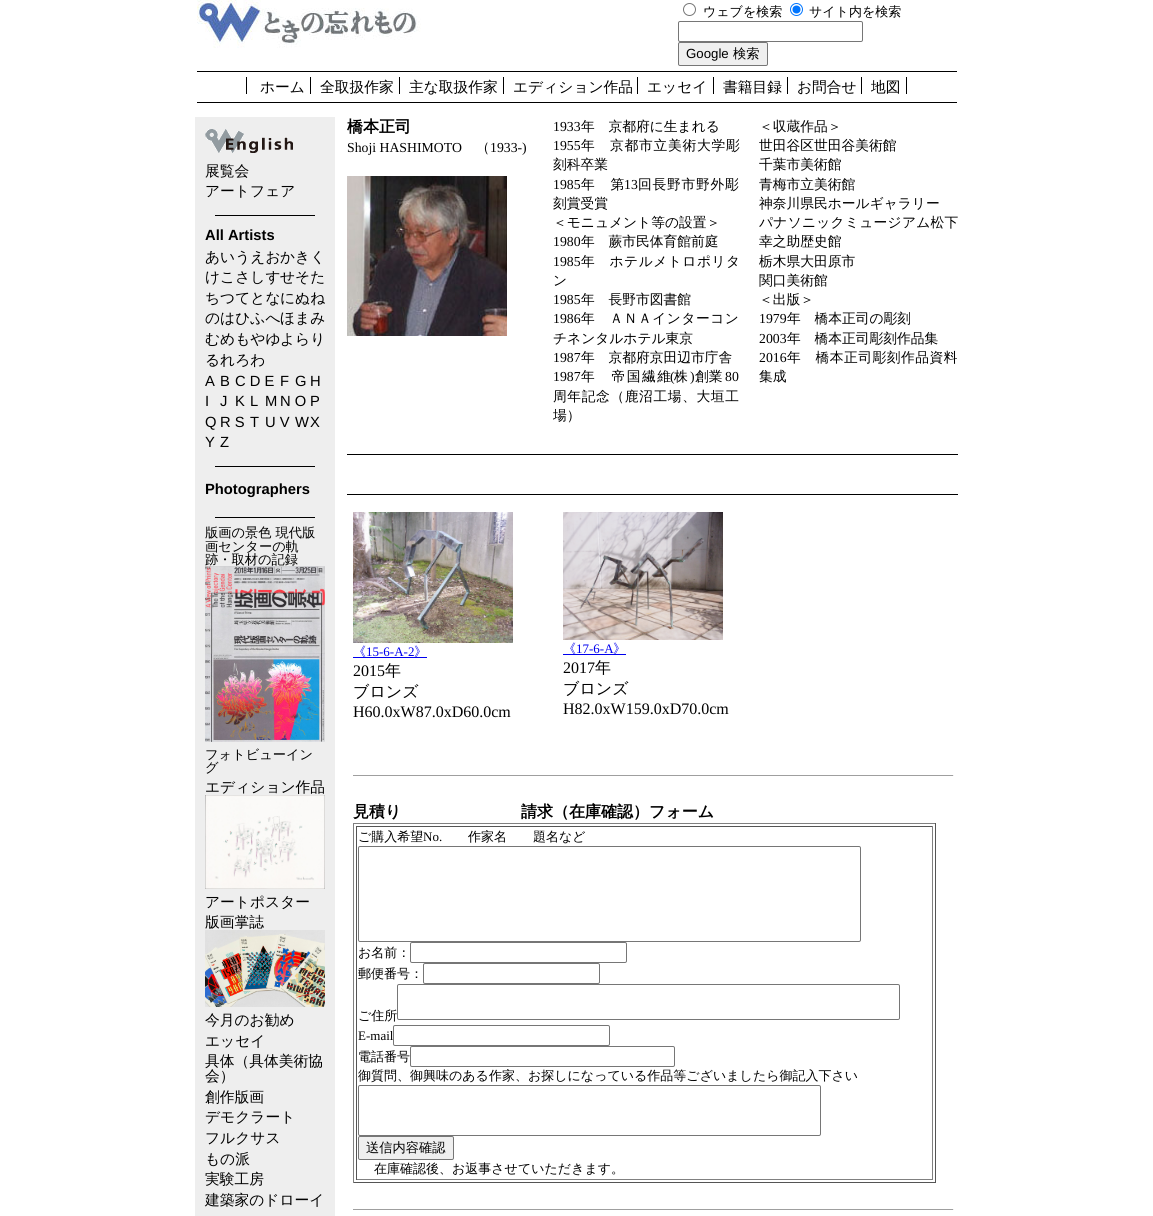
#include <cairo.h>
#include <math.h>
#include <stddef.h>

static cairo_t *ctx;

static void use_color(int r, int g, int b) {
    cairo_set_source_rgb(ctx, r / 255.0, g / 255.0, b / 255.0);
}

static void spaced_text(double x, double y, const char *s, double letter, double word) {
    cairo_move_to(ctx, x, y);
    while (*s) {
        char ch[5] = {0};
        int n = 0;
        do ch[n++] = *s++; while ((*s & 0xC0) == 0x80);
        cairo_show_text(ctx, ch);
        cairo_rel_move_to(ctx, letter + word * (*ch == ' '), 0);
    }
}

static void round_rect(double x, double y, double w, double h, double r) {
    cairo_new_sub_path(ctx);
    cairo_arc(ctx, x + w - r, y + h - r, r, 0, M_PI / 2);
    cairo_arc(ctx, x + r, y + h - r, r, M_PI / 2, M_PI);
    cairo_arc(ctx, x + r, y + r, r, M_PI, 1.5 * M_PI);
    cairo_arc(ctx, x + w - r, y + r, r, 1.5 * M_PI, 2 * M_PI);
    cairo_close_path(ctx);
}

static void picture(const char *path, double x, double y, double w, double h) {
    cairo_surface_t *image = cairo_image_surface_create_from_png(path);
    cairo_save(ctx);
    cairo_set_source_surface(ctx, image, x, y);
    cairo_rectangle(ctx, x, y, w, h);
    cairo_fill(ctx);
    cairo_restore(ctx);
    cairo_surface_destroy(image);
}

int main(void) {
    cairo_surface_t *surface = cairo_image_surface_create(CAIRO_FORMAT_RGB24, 1153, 1216);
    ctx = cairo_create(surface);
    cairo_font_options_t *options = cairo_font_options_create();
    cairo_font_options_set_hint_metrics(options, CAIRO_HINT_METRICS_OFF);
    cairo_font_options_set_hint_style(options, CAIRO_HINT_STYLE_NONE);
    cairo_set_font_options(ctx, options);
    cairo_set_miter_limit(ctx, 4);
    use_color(255, 255, 255);
    cairo_paint(ctx);
    picture("img1.png", 197, 0, 224, 48);
    cairo_arc(ctx, 689.5, 9.5, 6, 0, 2 * M_PI);
    use_color(118, 118, 118);
    cairo_set_line_width(ctx, 1);
    cairo_stroke(ctx);
    cairo_select_font_face(ctx, "WenQuanYi Zen Hei Medium", CAIRO_FONT_SLANT_NORMAL, CAIRO_FONT_WEIGHT_NORMAL);
    cairo_set_font_size(ctx, 13);
    use_color(0, 0, 0);
    cairo_move_to(ctx, 703, 16);
    cairo_show_text(ctx, "ウェブを検索");
    cairo_new_path(ctx);
    cairo_arc(ctx, 796.5, 9.5, 6, 0, 2 * M_PI);
    use_color(0, 117, 255);
    cairo_stroke(ctx);
    cairo_arc(ctx, 796.5, 9.5, 4, 0, 2 * M_PI);
    cairo_fill(ctx);
    use_color(0, 0, 0);
    cairo_move_to(ctx, 809, 16);
    cairo_show_text(ctx, "サイト内を検索");
    round_rect(678.5, 21.5, 184, 20, 1.5);
    use_color(118, 118, 118);
    cairo_stroke(ctx);
    use_color(239, 239, 239);
    round_rect(678.5, 42.5, 89, 23, 1.5);
    cairo_fill_preserve(ctx);
    use_color(118, 118, 118);
    cairo_stroke(ctx);
    cairo_select_font_face(ctx, "Liberation Sans", CAIRO_FONT_SLANT_NORMAL, CAIRO_FONT_WEIGHT_NORMAL);
    cairo_set_font_size(ctx, 13.25);
    use_color(0, 0, 0);
    cairo_move_to(ctx, 686, 58);
    cairo_show_text(ctx, "Google");
    cairo_select_font_face(ctx, "WenQuanYi Zen Hei Medium", CAIRO_FONT_SLANT_NORMAL, CAIRO_FONT_WEIGHT_NORMAL);
    cairo_move_to(ctx, 733, 58);
    cairo_show_text(ctx, "検索");
    cairo_rectangle(ctx, 197, 71, 760, 1);
    cairo_fill(ctx);
    cairo_set_font_size(ctx, 14.75);
    cairo_move_to(ctx, 260, 92);
    cairo_show_text(ctx, "ホーム");
    cairo_rectangle(ctx, 310, 77, 1, 17);
    cairo_fill(ctx);
    cairo_rectangle(ctx, 246, 77, 1, 17);
    cairo_fill(ctx);
    cairo_move_to(ctx, 320, 92);
    cairo_show_text(ctx, "全取扱作家");
    cairo_rectangle(ctx, 399, 77, 1, 17);
    cairo_fill(ctx);
    cairo_move_to(ctx, 409, 92);
    cairo_show_text(ctx, "主な取扱作家");
    cairo_rectangle(ctx, 503, 77, 1, 17);
    cairo_fill(ctx);
    cairo_move_to(ctx, 513, 92);
    cairo_show_text(ctx, "エディション作品");
    cairo_rectangle(ctx, 637, 77, 1, 17);
    cairo_fill(ctx);
    cairo_move_to(ctx, 647, 92);
    cairo_show_text(ctx, "エッセイ");
    cairo_rectangle(ctx, 713, 77, 1, 17);
    cairo_fill(ctx);
    cairo_move_to(ctx, 723, 92);
    cairo_show_text(ctx, "書籍目録");
    cairo_rectangle(ctx, 787, 77, 1, 17);
    cairo_fill(ctx);
    cairo_move_to(ctx, 797, 92);
    cairo_show_text(ctx, "お問合せ");
    cairo_rectangle(ctx, 861, 77, 1, 17);
    cairo_fill(ctx);
    cairo_move_to(ctx, 871, 92);
    cairo_show_text(ctx, "地図");
    cairo_rectangle(ctx, 906, 77, 1, 17);
    cairo_fill(ctx);
    cairo_rectangle(ctx, 197, 102, 760, 1);
    cairo_fill(ctx);
    use_color(238, 238, 238);
    cairo_rectangle(ctx, 195, 117, 140, 1099);
    cairo_fill(ctx);
    picture("img2.png", 205, 129, 88, 24);
    use_color(0, 0, 0);
    cairo_move_to(ctx, 205, 176);
    cairo_show_text(ctx, "展覧会");
    cairo_move_to(ctx, 205, 196);
    cairo_show_text(ctx, "アートフェア");
    cairo_rectangle(ctx, 215, 215, 100, 1);
    cairo_fill(ctx);
    cairo_select_font_face(ctx, "Liberation Sans", CAIRO_FONT_SLANT_NORMAL, CAIRO_FONT_WEIGHT_BOLD);
    cairo_move_to(ctx, 205, 240);
    cairo_show_text(ctx, "All Artists");
    cairo_select_font_face(ctx, "WenQuanYi Zen Hei Medium", CAIRO_FONT_SLANT_NORMAL, CAIRO_FONT_WEIGHT_NORMAL);
    cairo_move_to(ctx, 205, 262);
    cairo_show_text(ctx, "あいうえお");
    cairo_move_to(ctx, 280, 262);
    cairo_show_text(ctx, "かきく");
    cairo_move_to(ctx, 205, 282);
    cairo_show_text(ctx, "けこさしす");
    cairo_move_to(ctx, 280, 282);
    cairo_show_text(ctx, "せそた");
    cairo_move_to(ctx, 205, 303);
    cairo_show_text(ctx, "ちつてとな");
    cairo_move_to(ctx, 280, 303);
    cairo_show_text(ctx, "にぬね");
    cairo_move_to(ctx, 205, 323);
    cairo_show_text(ctx, "のはひふへ");
    cairo_move_to(ctx, 280, 323);
    cairo_show_text(ctx, "ほまみ");
    cairo_move_to(ctx, 205, 344);
    cairo_show_text(ctx, "むめもやゆ");
    cairo_move_to(ctx, 280, 344);
    cairo_show_text(ctx, "よらり");
    cairo_move_to(ctx, 205, 365);
    cairo_show_text(ctx, "るれろわ");
    cairo_select_font_face(ctx, "Liberation Sans", CAIRO_FONT_SLANT_NORMAL, CAIRO_FONT_WEIGHT_NORMAL);
    cairo_move_to(ctx, 205, 386);
    cairo_show_text(ctx, "A");
    cairo_move_to(ctx, 220, 386);
    cairo_show_text(ctx, "B");
    cairo_move_to(ctx, 235, 386);
    cairo_show_text(ctx, "C D E");
    cairo_move_to(ctx, 280, 386);
    cairo_show_text(ctx, "F");
    cairo_move_to(ctx, 295, 386);
    cairo_show_text(ctx, "G");
    cairo_move_to(ctx, 310, 386);
    cairo_show_text(ctx, "H");
    cairo_move_to(ctx, 205, 406);
    cairo_show_text(ctx, "I");
    cairo_move_to(ctx, 220, 406);
    cairo_show_text(ctx, "J");
    cairo_move_to(ctx, 235, 406);
    cairo_show_text(ctx, "K");
    cairo_move_to(ctx, 250, 406);
    cairo_show_text(ctx, "L");
    cairo_move_to(ctx, 265, 406);
    cairo_show_text(ctx, "M");
    cairo_move_to(ctx, 280, 406);
    cairo_show_text(ctx, "N O");
    cairo_move_to(ctx, 310, 406);
    cairo_show_text(ctx, "P");
    cairo_move_to(ctx, 205, 427);
    cairo_show_text(ctx, "Q");
    cairo_move_to(ctx, 220, 427);
    cairo_show_text(ctx, "R S");
    cairo_move_to(ctx, 250, 427);
    cairo_show_text(ctx, "T");
    cairo_move_to(ctx, 265, 427);
    cairo_show_text(ctx, "U V");
    cairo_move_to(ctx, 295, 427);
    cairo_show_text(ctx, "W");
    cairo_move_to(ctx, 310, 427);
    cairo_show_text(ctx, "X");
    cairo_move_to(ctx, 205, 447);
    cairo_show_text(ctx, "Y");
    cairo_move_to(ctx, 220, 447);
    cairo_show_text(ctx, "Z");
    cairo_rectangle(ctx, 215, 466, 100, 1);
    cairo_fill(ctx);
    cairo_select_font_face(ctx, "Liberation Sans", CAIRO_FONT_SLANT_NORMAL, CAIRO_FONT_WEIGHT_BOLD);
    cairo_move_to(ctx, 205, 494);
    cairo_show_text(ctx, "Photographers");
    cairo_rectangle(ctx, 215, 517, 100, 1);
    cairo_fill(ctx);
    cairo_select_font_face(ctx, "WenQuanYi Zen Hei Medium", CAIRO_FONT_SLANT_NORMAL, CAIRO_FONT_WEIGHT_NORMAL);
    cairo_set_font_size(ctx, 13.25);
    cairo_move_to(ctx, 205, 537);
    cairo_show_text(ctx, "版画の景色 現代版");
    cairo_move_to(ctx, 205, 551);
    cairo_show_text(ctx, "画センターの軌");
    cairo_move_to(ctx, 205, 564);
    cairo_show_text(ctx, "跡・取材の記録");
    picture("img3.png", 205, 566, 120, 176);
    cairo_move_to(ctx, 205, 759);
    cairo_show_text(ctx, "フォトビューイン");
    cairo_move_to(ctx, 205, 772);
    cairo_show_text(ctx, "グ");
    cairo_set_font_size(ctx, 14.75);
    cairo_move_to(ctx, 205, 792);
    cairo_show_text(ctx, "エディション作品");
    picture("img4.png", 205, 795, 120, 94);
    cairo_move_to(ctx, 205, 907);
    cairo_show_text(ctx, "アートポスター");
    cairo_move_to(ctx, 205, 927);
    cairo_show_text(ctx, "版画掌誌");
    picture("img5.png", 205, 930, 120, 77);
    cairo_move_to(ctx, 205, 1025);
    cairo_show_text(ctx, "今月のお勧め");
    cairo_move_to(ctx, 205, 1046);
    cairo_show_text(ctx, "エッセイ");
    cairo_move_to(ctx, 205, 1066);
    cairo_show_text(ctx, "具体（具体美術協");
    cairo_move_to(ctx, 205, 1081);
    cairo_show_text(ctx, "会）");
    cairo_move_to(ctx, 205, 1102);
    cairo_show_text(ctx, "創作版画");
    cairo_move_to(ctx, 205, 1122);
    cairo_show_text(ctx, "デモクラート");
    cairo_move_to(ctx, 205, 1143);
    cairo_show_text(ctx, "フルクサス");
    cairo_move_to(ctx, 205, 1164);
    cairo_show_text(ctx, "もの派");
    cairo_move_to(ctx, 205, 1184);
    cairo_show_text(ctx, "実験工房");
    cairo_move_to(ctx, 205, 1205);
    cairo_show_text(ctx, "建築家のドローイ");
    cairo_select_font_face(ctx, "WenQuanYi Zen Hei", CAIRO_FONT_SLANT_NORMAL, CAIRO_FONT_WEIGHT_BOLD);
    cairo_set_font_size(ctx, 16);
    cairo_move_to(ctx, 347, 132);
    cairo_show_text(ctx, "橋本正司");
    cairo_select_font_face(ctx, "Liberation Serif", CAIRO_FONT_SLANT_NORMAL, CAIRO_FONT_WEIGHT_NORMAL);
    cairo_set_font_size(ctx, 13.75);
    cairo_move_to(ctx, 347, 152);
    cairo_show_text(ctx, "Shoji HASHIMOTO");
    cairo_select_font_face(ctx, "WenQuanYi Zen Hei Medium", CAIRO_FONT_SLANT_NORMAL, CAIRO_FONT_WEIGHT_NORMAL);
    cairo_move_to(ctx, 476, 152);
    cairo_show_text(ctx, "（");
    cairo_select_font_face(ctx, "Liberation Serif", CAIRO_FONT_SLANT_NORMAL, CAIRO_FONT_WEIGHT_NORMAL);
    cairo_move_to(ctx, 490, 152);
    cairo_show_text(ctx, "1933-)");
    picture("img6.png", 347, 176, 160, 160);
    cairo_move_to(ctx, 553, 131);
    cairo_show_text(ctx, "1933");
    cairo_select_font_face(ctx, "WenQuanYi Zen Hei Medium", CAIRO_FONT_SLANT_NORMAL, CAIRO_FONT_WEIGHT_NORMAL);
    cairo_move_to(ctx, 581, 131);
    cairo_show_text(ctx, "年　京都府に生まれる");
    cairo_select_font_face(ctx, "Liberation Serif", CAIRO_FONT_SLANT_NORMAL, CAIRO_FONT_WEIGHT_NORMAL);
    cairo_move_to(ctx, 553, 150);
    cairo_show_text(ctx, "1955");
    cairo_select_font_face(ctx, "WenQuanYi Zen Hei Medium", CAIRO_FONT_SLANT_NORMAL, CAIRO_FONT_WEIGHT_NORMAL);
    spaced_text(581, 150, "年　京都市立美術大学彫", 0.75, 0);
    cairo_move_to(ctx, 553, 169);
    cairo_show_text(ctx, "刻科卒業");
    cairo_select_font_face(ctx, "Liberation Serif", CAIRO_FONT_SLANT_NORMAL, CAIRO_FONT_WEIGHT_NORMAL);
    cairo_move_to(ctx, 553, 189);
    cairo_show_text(ctx, "1985");
    cairo_select_font_face(ctx, "WenQuanYi Zen Hei Medium", CAIRO_FONT_SLANT_NORMAL, CAIRO_FONT_WEIGHT_NORMAL);
    spaced_text(581, 189, "年　第", 1, 0);
    cairo_select_font_face(ctx, "Liberation Serif", CAIRO_FONT_SLANT_NORMAL, CAIRO_FONT_WEIGHT_NORMAL);
    cairo_move_to(ctx, 624, 189);
    cairo_show_text(ctx, "13");
    cairo_select_font_face(ctx, "WenQuanYi Zen Hei Medium", CAIRO_FONT_SLANT_NORMAL, CAIRO_FONT_WEIGHT_NORMAL);
    spaced_text(638, 189, "回長野市野外彫", 0.75, 0);
    cairo_move_to(ctx, 553, 208);
    cairo_show_text(ctx, "刻賞受賞");
    cairo_move_to(ctx, 553, 227);
    cairo_show_text(ctx, "＜モニュメント等の設置＞");
    cairo_select_font_face(ctx, "Liberation Serif", CAIRO_FONT_SLANT_NORMAL, CAIRO_FONT_WEIGHT_NORMAL);
    cairo_move_to(ctx, 553, 246);
    cairo_show_text(ctx, "1980");
    cairo_select_font_face(ctx, "WenQuanYi Zen Hei Medium", CAIRO_FONT_SLANT_NORMAL, CAIRO_FONT_WEIGHT_NORMAL);
    cairo_move_to(ctx, 581, 246);
    cairo_show_text(ctx, "年　蕨市民体育館前庭");
    cairo_select_font_face(ctx, "Liberation Serif", CAIRO_FONT_SLANT_NORMAL, CAIRO_FONT_WEIGHT_NORMAL);
    cairo_move_to(ctx, 553, 266);
    cairo_show_text(ctx, "1985");
    cairo_select_font_face(ctx, "WenQuanYi Zen Hei Medium", CAIRO_FONT_SLANT_NORMAL, CAIRO_FONT_WEIGHT_NORMAL);
    spaced_text(581, 266, "年　ホテルメトロポリタ", 0.5, 0);
    cairo_move_to(ctx, 553, 285);
    cairo_show_text(ctx, "ン");
    cairo_select_font_face(ctx, "Liberation Serif", CAIRO_FONT_SLANT_NORMAL, CAIRO_FONT_WEIGHT_NORMAL);
    cairo_move_to(ctx, 553, 304);
    cairo_show_text(ctx, "1985");
    cairo_select_font_face(ctx, "WenQuanYi Zen Hei Medium", CAIRO_FONT_SLANT_NORMAL, CAIRO_FONT_WEIGHT_NORMAL);
    cairo_move_to(ctx, 581, 304);
    cairo_show_text(ctx, "年　長野市図書館");
    cairo_select_font_face(ctx, "Liberation Serif", CAIRO_FONT_SLANT_NORMAL, CAIRO_FONT_WEIGHT_NORMAL);
    cairo_move_to(ctx, 553, 323);
    cairo_show_text(ctx, "1986");
    cairo_select_font_face(ctx, "WenQuanYi Zen Hei Medium", CAIRO_FONT_SLANT_NORMAL, CAIRO_FONT_WEIGHT_NORMAL);
    spaced_text(581, 323, "年　ＡＮＡインターコン", 0.5, 0);
    cairo_move_to(ctx, 553, 343);
    cairo_show_text(ctx, "チネンタルホテル東京");
    cairo_select_font_face(ctx, "Liberation Serif", CAIRO_FONT_SLANT_NORMAL, CAIRO_FONT_WEIGHT_NORMAL);
    cairo_move_to(ctx, 553, 362);
    cairo_show_text(ctx, "1987");
    cairo_select_font_face(ctx, "WenQuanYi Zen Hei Medium", CAIRO_FONT_SLANT_NORMAL, CAIRO_FONT_WEIGHT_NORMAL);
    cairo_move_to(ctx, 581, 362);
    cairo_show_text(ctx, "年　京都府京田辺市庁舎");
    cairo_select_font_face(ctx, "Liberation Serif", CAIRO_FONT_SLANT_NORMAL, CAIRO_FONT_WEIGHT_NORMAL);
    cairo_move_to(ctx, 553, 381);
    cairo_show_text(ctx, "1987");
    cairo_select_font_face(ctx, "WenQuanYi Zen Hei Medium", CAIRO_FONT_SLANT_NORMAL, CAIRO_FONT_WEIGHT_NORMAL);
    spaced_text(581, 381, "年　帝国繊維", 1.5, 0);
    cairo_select_font_face(ctx, "Liberation Serif", CAIRO_FONT_SLANT_NORMAL, CAIRO_FONT_WEIGHT_NORMAL);
    cairo_move_to(ctx, 670, 381);
    cairo_show_text(ctx, "(");
    cairo_select_font_face(ctx, "WenQuanYi Zen Hei Medium", CAIRO_FONT_SLANT_NORMAL, CAIRO_FONT_WEIGHT_NORMAL);
    cairo_move_to(ctx, 674, 381);
    cairo_show_text(ctx, "株");
    cairo_select_font_face(ctx, "Liberation Serif", CAIRO_FONT_SLANT_NORMAL, CAIRO_FONT_WEIGHT_NORMAL);
    cairo_move_to(ctx, 690, 381);
    cairo_show_text(ctx, ")");
    cairo_select_font_face(ctx, "WenQuanYi Zen Hei Medium", CAIRO_FONT_SLANT_NORMAL, CAIRO_FONT_WEIGHT_NORMAL);
    cairo_move_to(ctx, 695, 381);
    cairo_show_text(ctx, "創業");
    cairo_select_font_face(ctx, "Liberation Serif", CAIRO_FONT_SLANT_NORMAL, CAIRO_FONT_WEIGHT_NORMAL);
    cairo_move_to(ctx, 725, 381);
    cairo_show_text(ctx, "80");
    cairo_select_font_face(ctx, "WenQuanYi Zen Hei Medium", CAIRO_FONT_SLANT_NORMAL, CAIRO_FONT_WEIGHT_NORMAL);
    spaced_text(553, 401, "周年記念（鹿沼工場、大垣工", 0.6, 0);
    cairo_move_to(ctx, 553, 420);
    cairo_show_text(ctx, "場）");
    cairo_move_to(ctx, 759, 131);
    cairo_show_text(ctx, "＜収蔵作品＞");
    cairo_move_to(ctx, 759, 150);
    cairo_show_text(ctx, "世田谷区世田谷美術館");
    cairo_move_to(ctx, 759, 169);
    cairo_show_text(ctx, "千葉市美術館");
    cairo_move_to(ctx, 759, 189);
    cairo_show_text(ctx, "青梅市立美術館");
    cairo_move_to(ctx, 759, 208);
    cairo_show_text(ctx, "神奈川県民ホールギャラリー");
    spaced_text(759, 227, "パナソニックミュージアム松下", 0.25, 0);
    cairo_move_to(ctx, 759, 246);
    cairo_show_text(ctx, "幸之助歴史館");
    cairo_move_to(ctx, 759, 266);
    cairo_show_text(ctx, "栃木県大田原市");
    cairo_move_to(ctx, 759, 285);
    cairo_show_text(ctx, "関口美術館");
    cairo_move_to(ctx, 759, 304);
    cairo_show_text(ctx, "＜出版＞");
    cairo_select_font_face(ctx, "Liberation Serif", CAIRO_FONT_SLANT_NORMAL, CAIRO_FONT_WEIGHT_NORMAL);
    cairo_move_to(ctx, 759, 323);
    cairo_show_text(ctx, "1979");
    cairo_select_font_face(ctx, "WenQuanYi Zen Hei Medium", CAIRO_FONT_SLANT_NORMAL, CAIRO_FONT_WEIGHT_NORMAL);
    cairo_move_to(ctx, 787, 323);
    cairo_show_text(ctx, "年　橋本正司の彫刻");
    cairo_select_font_face(ctx, "Liberation Serif", CAIRO_FONT_SLANT_NORMAL, CAIRO_FONT_WEIGHT_NORMAL);
    cairo_move_to(ctx, 759, 343);
    cairo_show_text(ctx, "2003");
    cairo_select_font_face(ctx, "WenQuanYi Zen Hei Medium", CAIRO_FONT_SLANT_NORMAL, CAIRO_FONT_WEIGHT_NORMAL);
    cairo_move_to(ctx, 787, 343);
    cairo_show_text(ctx, "年　橋本正司彫刻作品集");
    cairo_select_font_face(ctx, "Liberation Serif", CAIRO_FONT_SLANT_NORMAL, CAIRO_FONT_WEIGHT_NORMAL);
    cairo_move_to(ctx, 759, 362);
    cairo_show_text(ctx, "2016");
    cairo_select_font_face(ctx, "WenQuanYi Zen Hei Medium", CAIRO_FONT_SLANT_NORMAL, CAIRO_FONT_WEIGHT_NORMAL);
    spaced_text(787, 362, "年　橋本正司彫刻作品資料", 0.5, 0);
    cairo_move_to(ctx, 759, 381);
    cairo_show_text(ctx, "集成");
    cairo_rectangle(ctx, 347, 454, 611, 1);
    cairo_fill(ctx);
    cairo_rectangle(ctx, 347, 494, 611, 1);
    cairo_fill(ctx);
    picture("img7.png", 353, 512, 160, 131);
    use_color(0, 0, 238);
    cairo_rectangle(ctx, 353, 657, 74, 1);
    cairo_fill(ctx);
    cairo_set_font_size(ctx, 13);
    cairo_move_to(ctx, 353, 656);
    cairo_show_text(ctx, "《");
    cairo_select_font_face(ctx, "Liberation Serif", CAIRO_FONT_SLANT_NORMAL, CAIRO_FONT_WEIGHT_NORMAL);
    cairo_move_to(ctx, 366, 656);
    cairo_show_text(ctx, "15-6-A-2");
    cairo_select_font_face(ctx, "WenQuanYi Zen Hei Medium", CAIRO_FONT_SLANT_NORMAL, CAIRO_FONT_WEIGHT_NORMAL);
    cairo_move_to(ctx, 414, 656);
    cairo_show_text(ctx, "》");
    cairo_select_font_face(ctx, "Liberation Serif", CAIRO_FONT_SLANT_NORMAL, CAIRO_FONT_WEIGHT_NORMAL);
    cairo_set_font_size(ctx, 16);
    use_color(0, 0, 0);
    cairo_move_to(ctx, 353, 676);
    cairo_show_text(ctx, "2015");
    cairo_select_font_face(ctx, "WenQuanYi Zen Hei Medium", CAIRO_FONT_SLANT_NORMAL, CAIRO_FONT_WEIGHT_NORMAL);
    cairo_move_to(ctx, 385, 676);
    cairo_show_text(ctx, "年");
    cairo_move_to(ctx, 353, 697);
    cairo_show_text(ctx, "ブロンズ");
    cairo_select_font_face(ctx, "Liberation Serif", CAIRO_FONT_SLANT_NORMAL, CAIRO_FONT_WEIGHT_NORMAL);
    cairo_move_to(ctx, 353, 717);
    cairo_show_text(ctx, "H60.0xW87.0xD60.0cm");
    picture("img8.png", 563, 512, 160, 128);
    use_color(0, 0, 238);
    cairo_rectangle(ctx, 563, 654, 63, 1);
    cairo_fill(ctx);
    cairo_select_font_face(ctx, "WenQuanYi Zen Hei Medium", CAIRO_FONT_SLANT_NORMAL, CAIRO_FONT_WEIGHT_NORMAL);
    cairo_set_font_size(ctx, 13);
    cairo_move_to(ctx, 563, 653);
    cairo_show_text(ctx, "《");
    cairo_select_font_face(ctx, "Liberation Serif", CAIRO_FONT_SLANT_NORMAL, CAIRO_FONT_WEIGHT_NORMAL);
    cairo_move_to(ctx, 576, 653);
    cairo_show_text(ctx, "17-6-A");
    cairo_select_font_face(ctx, "WenQuanYi Zen Hei Medium", CAIRO_FONT_SLANT_NORMAL, CAIRO_FONT_WEIGHT_NORMAL);
    cairo_move_to(ctx, 613, 653);
    cairo_show_text(ctx, "》");
    cairo_select_font_face(ctx, "Liberation Serif", CAIRO_FONT_SLANT_NORMAL, CAIRO_FONT_WEIGHT_NORMAL);
    cairo_set_font_size(ctx, 16);
    use_color(0, 0, 0);
    cairo_move_to(ctx, 563, 673);
    cairo_show_text(ctx, "2017");
    cairo_select_font_face(ctx, "WenQuanYi Zen Hei Medium", CAIRO_FONT_SLANT_NORMAL, CAIRO_FONT_WEIGHT_NORMAL);
    cairo_move_to(ctx, 595, 673);
    cairo_show_text(ctx, "年");
    cairo_move_to(ctx, 563, 694);
    cairo_show_text(ctx, "ブロンズ");
    cairo_select_font_face(ctx, "Liberation Serif", CAIRO_FONT_SLANT_NORMAL, CAIRO_FONT_WEIGHT_NORMAL);
    cairo_move_to(ctx, 563, 714);
    cairo_show_text(ctx, "H82.0xW159.0xD70.0cm");
    use_color(159, 159, 159);
    cairo_rectangle(ctx, 353, 775, 601, 1);
    cairo_fill(ctx);
    use_color(238, 238, 238);
    cairo_rectangle(ctx, 953, 775, 1, 1);
    cairo_fill(ctx);
    cairo_select_font_face(ctx, "WenQuanYi Zen Hei", CAIRO_FONT_SLANT_NORMAL, CAIRO_FONT_WEIGHT_BOLD);
    use_color(0, 0, 0);
    cairo_move_to(ctx, 353, 817);
    cairo_show_text(ctx, "見積り");
    cairo_move_to(ctx, 521, 817);
    cairo_show_text(ctx, "請求（在庫確認）フォーム");
    use_color(128, 128, 128);
    cairo_rectangle(ctx, 353, 823, 583, 1);
    cairo_fill(ctx);
    use_color(85, 85, 85);
    cairo_rectangle(ctx, 935, 823, 1, 360);
    cairo_fill(ctx);
    cairo_rectangle(ctx, 353, 1182, 583, 1);
    cairo_fill(ctx);
    use_color(128, 128, 128);
    cairo_rectangle(ctx, 353, 823, 1, 360);
    cairo_fill(ctx);
    use_color(85, 85, 85);
    cairo_rectangle(ctx, 356, 826, 577, 1);
    cairo_fill(ctx);
    use_color(128, 128, 128);
    cairo_rectangle(ctx, 932, 826, 1, 354);
    cairo_fill(ctx);
    cairo_rectangle(ctx, 356, 1179, 577, 1);
    cairo_fill(ctx);
    use_color(85, 85, 85);
    cairo_rectangle(ctx, 356, 826, 1, 354);
    cairo_fill(ctx);
    cairo_select_font_face(ctx, "WenQuanYi Zen Hei Medium", CAIRO_FONT_SLANT_NORMAL, CAIRO_FONT_WEIGHT_NORMAL);
    cairo_set_font_size(ctx, 13);
    use_color(0, 0, 0);
    cairo_move_to(ctx, 358, 841);
    cairo_show_text(ctx, "ご購入希望");
    cairo_select_font_face(ctx, "Liberation Serif", CAIRO_FONT_SLANT_NORMAL, CAIRO_FONT_WEIGHT_NORMAL);
    cairo_move_to(ctx, 423, 841);
    cairo_show_text(ctx, "No.");
    cairo_select_font_face(ctx, "WenQuanYi Zen Hei Medium", CAIRO_FONT_SLANT_NORMAL, CAIRO_FONT_WEIGHT_NORMAL);
    cairo_move_to(ctx, 468, 841);
    cairo_show_text(ctx, "作家名　　題名など");
    round_rect(358.5, 846.5, 502, 95, 1.5);
    use_color(118, 118, 118);
    cairo_stroke(ctx);
    use_color(0, 0, 0);
    cairo_move_to(ctx, 358, 957);
    cairo_show_text(ctx, "お名前：");
    round_rect(410.5, 942.5, 216, 20, 1.5);
    use_color(118, 118, 118);
    cairo_stroke(ctx);
    use_color(0, 0, 0);
    cairo_move_to(ctx, 358, 978);
    cairo_show_text(ctx, "郵便番号：");
    round_rect(423.5, 963.5, 176, 20, 1.5);
    use_color(118, 118, 118);
    cairo_stroke(ctx);
    use_color(0, 0, 0);
    cairo_move_to(ctx, 358, 1020);
    cairo_show_text(ctx, "ご住所");
    round_rect(397.5, 984.5, 502, 35, 1.5);
    use_color(118, 118, 118);
    cairo_stroke(ctx);
    cairo_select_font_face(ctx, "Liberation Serif", CAIRO_FONT_SLANT_NORMAL, CAIRO_FONT_WEIGHT_NORMAL);
    use_color(0, 0, 0);
    cairo_move_to(ctx, 358, 1040);
    cairo_show_text(ctx, "E-mail");
    use_color(255, 255, 255);
    round_rect(393.5, 1025.5, 216, 20, 1.5);
    cairo_fill_preserve(ctx);
    use_color(118, 118, 118);
    cairo_stroke(ctx);
    cairo_select_font_face(ctx, "WenQuanYi Zen Hei Medium", CAIRO_FONT_SLANT_NORMAL, CAIRO_FONT_WEIGHT_NORMAL);
    use_color(0, 0, 0);
    cairo_move_to(ctx, 358, 1061);
    cairo_show_text(ctx, "電話番号");
    round_rect(410.5, 1046.5, 264, 20, 1.5);
    use_color(118, 118, 118);
    cairo_stroke(ctx);
    use_color(0, 0, 0);
    cairo_move_to(ctx, 358, 1080);
    cairo_show_text(ctx, "御質問、御興味のある作家、お探しになっている作品等ございましたら御記入下さい");
    round_rect(358.5, 1085.5, 462, 50, 1.5);
    use_color(118, 118, 118);
    cairo_stroke(ctx);
    use_color(239, 239, 239);
    round_rect(358.5, 1136.5, 95, 23, 1.5);
    cairo_fill_preserve(ctx);
    use_color(118, 118, 118);
    cairo_stroke(ctx);
    cairo_set_font_size(ctx, 13.25);
    use_color(0, 0, 0);
    cairo_move_to(ctx, 366, 1152);
    cairo_show_text(ctx, "送信内容確認");
    cairo_set_font_size(ctx, 13);
    cairo_move_to(ctx, 374, 1173);
    cairo_show_text(ctx, "在庫確認後、お返事させていただきます。");
    use_color(159, 159, 159);
    cairo_rectangle(ctx, 353, 1209, 601, 1);
    cairo_fill(ctx);
    use_color(238, 238, 238);
    cairo_rectangle(ctx, 953, 1209, 1, 1);
    cairo_fill(ctx);
    cairo_surface_write_to_png(surface, "result.png");
    cairo_font_options_destroy(options);
    cairo_destroy(ctx);
    cairo_surface_destroy(surface);
    return 0;
}
